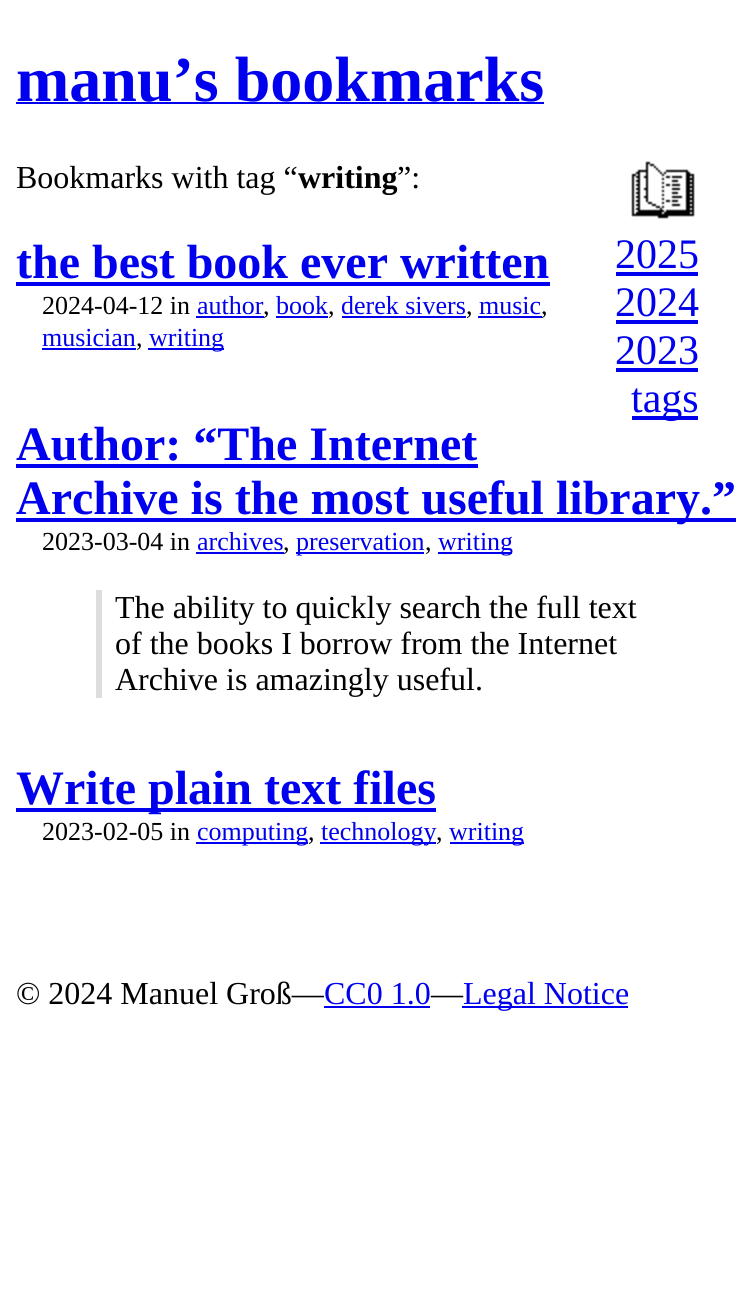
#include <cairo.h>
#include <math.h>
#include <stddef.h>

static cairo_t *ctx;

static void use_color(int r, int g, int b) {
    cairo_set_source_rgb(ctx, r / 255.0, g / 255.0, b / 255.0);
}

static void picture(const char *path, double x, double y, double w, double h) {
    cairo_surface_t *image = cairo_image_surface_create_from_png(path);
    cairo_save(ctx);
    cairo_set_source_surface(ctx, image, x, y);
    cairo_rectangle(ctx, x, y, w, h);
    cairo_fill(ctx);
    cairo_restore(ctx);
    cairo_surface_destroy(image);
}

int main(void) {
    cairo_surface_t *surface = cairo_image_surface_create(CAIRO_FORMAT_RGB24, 755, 1291);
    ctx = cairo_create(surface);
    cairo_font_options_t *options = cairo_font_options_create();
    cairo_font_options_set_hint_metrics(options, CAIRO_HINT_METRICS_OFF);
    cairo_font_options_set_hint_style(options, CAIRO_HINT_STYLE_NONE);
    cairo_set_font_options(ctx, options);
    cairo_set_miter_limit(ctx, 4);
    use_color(255, 255, 255);
    cairo_paint(ctx);
    cairo_select_font_face(ctx, "Liberation Serif", CAIRO_FONT_SLANT_NORMAL, CAIRO_FONT_WEIGHT_BOLD);
    cairo_set_font_size(ctx, 64);
    use_color(0, 0, 238);
    cairo_move_to(ctx, 16, 101);
    cairo_show_text(ctx, "manu’s bookmarks");
    cairo_rectangle(ctx, 16, 102, 528, 2);
    cairo_fill(ctx);
    cairo_select_font_face(ctx, "Liberation Serif", CAIRO_FONT_SLANT_NORMAL, CAIRO_FONT_WEIGHT_NORMAL);
    cairo_set_font_size(ctx, 32);
    use_color(0, 0, 0);
    cairo_move_to(ctx, 16, 188);
    cairo_show_text(ctx, "Bookmarks with tag “");
    cairo_select_font_face(ctx, "Liberation Serif", CAIRO_FONT_SLANT_NORMAL, CAIRO_FONT_WEIGHT_BOLD);
    cairo_move_to(ctx, 298, 188);
    cairo_show_text(ctx, "writing");
    cairo_select_font_face(ctx, "Liberation Serif", CAIRO_FONT_SLANT_NORMAL, CAIRO_FONT_WEIGHT_NORMAL);
    cairo_move_to(ctx, 397, 188);
    cairo_show_text(ctx, "”:");
    cairo_select_font_face(ctx, "Liberation Serif", CAIRO_FONT_SLANT_NORMAL, CAIRO_FONT_WEIGHT_BOLD);
    cairo_set_font_size(ctx, 48);
    use_color(0, 0, 238);
    cairo_move_to(ctx, 16, 278);
    cairo_show_text(ctx, "the best book ever written");
    cairo_rectangle(ctx, 16, 282, 534, 4);
    cairo_fill(ctx);
    cairo_select_font_face(ctx, "Liberation Serif", CAIRO_FONT_SLANT_NORMAL, CAIRO_FONT_WEIGHT_NORMAL);
    cairo_set_font_size(ctx, 26);
    use_color(0, 0, 0);
    cairo_move_to(ctx, 42, 314);
    cairo_show_text(ctx, "2024-04-12 in");
    use_color(0, 0, 238);
    cairo_move_to(ctx, 197, 314);
    cairo_show_text(ctx, "author");
    cairo_rectangle(ctx, 196, 316, 68, 2);
    cairo_fill(ctx);
    use_color(0, 0, 0);
    cairo_move_to(ctx, 263, 314);
    cairo_show_text(ctx, ",");
    use_color(0, 0, 238);
    cairo_move_to(ctx, 276, 314);
    cairo_show_text(ctx, "book");
    cairo_rectangle(ctx, 276, 316, 52, 2);
    cairo_fill(ctx);
    use_color(0, 0, 0);
    cairo_move_to(ctx, 328, 314);
    cairo_show_text(ctx, ",");
    use_color(0, 0, 238);
    cairo_move_to(ctx, 341, 314);
    cairo_show_text(ctx, "derek sivers");
    cairo_rectangle(ctx, 342, 316, 124, 2);
    cairo_fill(ctx);
    use_color(0, 0, 0);
    cairo_move_to(ctx, 466, 314);
    cairo_show_text(ctx, ",");
    use_color(0, 0, 238);
    cairo_move_to(ctx, 479, 314);
    cairo_show_text(ctx, "music");
    cairo_rectangle(ctx, 478, 316, 64, 2);
    cairo_fill(ctx);
    use_color(0, 0, 0);
    cairo_move_to(ctx, 541, 314);
    cairo_show_text(ctx, ",");
    use_color(0, 0, 238);
    cairo_move_to(ctx, 42, 346);
    cairo_show_text(ctx, "musician");
    cairo_rectangle(ctx, 42, 348, 94, 2);
    cairo_fill(ctx);
    use_color(0, 0, 0);
    cairo_move_to(ctx, 136, 346);
    cairo_show_text(ctx, ",");
    use_color(0, 0, 238);
    cairo_rectangle(ctx, 148, 348, 76, 2);
    cairo_fill(ctx);
    cairo_move_to(ctx, 149, 346);
    cairo_show_text(ctx, "writing");
    cairo_select_font_face(ctx, "Liberation Serif", CAIRO_FONT_SLANT_NORMAL, CAIRO_FONT_WEIGHT_BOLD);
    cairo_set_font_size(ctx, 48);
    cairo_move_to(ctx, 16, 460);
    cairo_show_text(ctx, "Author: “The Internet");
    cairo_rectangle(ctx, 16, 464, 462, 4);
    cairo_fill(ctx);
    cairo_rectangle(ctx, 16, 518, 720, 4);
    cairo_fill(ctx);
    cairo_move_to(ctx, 16, 514);
    cairo_show_text(ctx, "Archive is the most useful library.”");
    cairo_select_font_face(ctx, "Liberation Serif", CAIRO_FONT_SLANT_NORMAL, CAIRO_FONT_WEIGHT_NORMAL);
    cairo_set_font_size(ctx, 26);
    use_color(0, 0, 0);
    cairo_move_to(ctx, 42, 550);
    cairo_show_text(ctx, "2023-03-04 in");
    use_color(0, 0, 238);
    cairo_move_to(ctx, 197, 550);
    cairo_show_text(ctx, "archives");
    cairo_rectangle(ctx, 196, 552, 88, 2);
    cairo_fill(ctx);
    use_color(0, 0, 0);
    cairo_move_to(ctx, 283, 550);
    cairo_show_text(ctx, ",");
    use_color(0, 0, 238);
    cairo_rectangle(ctx, 296, 552, 128, 2);
    cairo_fill(ctx);
    cairo_move_to(ctx, 296, 550);
    cairo_show_text(ctx, "preservation");
    use_color(0, 0, 0);
    cairo_move_to(ctx, 425, 550);
    cairo_show_text(ctx, ",");
    use_color(0, 0, 238);
    cairo_rectangle(ctx, 438, 552, 74, 2);
    cairo_fill(ctx);
    cairo_move_to(ctx, 438, 550);
    cairo_show_text(ctx, "writing");
    use_color(221, 221, 221);
    cairo_rectangle(ctx, 96, 590, 6, 108);
    cairo_fill(ctx);
    cairo_set_font_size(ctx, 32);
    use_color(0, 0, 0);
    cairo_move_to(ctx, 115, 618);
    cairo_show_text(ctx, "The ability to quickly search the full text");
    cairo_move_to(ctx, 115, 654);
    cairo_show_text(ctx, "of the books I borrow from the Internet");
    cairo_move_to(ctx, 115, 690);
    cairo_show_text(ctx, "Archive is amazingly useful.");
    use_color(0, 0, 238);
    cairo_rectangle(ctx, 16, 808, 420, 4);
    cairo_fill(ctx);
    cairo_select_font_face(ctx, "Liberation Serif", CAIRO_FONT_SLANT_NORMAL, CAIRO_FONT_WEIGHT_BOLD);
    cairo_set_font_size(ctx, 48);
    cairo_move_to(ctx, 16, 804);
    cairo_show_text(ctx, "Write plain text files");
    cairo_select_font_face(ctx, "Liberation Serif", CAIRO_FONT_SLANT_NORMAL, CAIRO_FONT_WEIGHT_NORMAL);
    cairo_set_font_size(ctx, 26);
    use_color(0, 0, 0);
    cairo_move_to(ctx, 42, 840);
    cairo_show_text(ctx, "2023-02-05 in");
    use_color(0, 0, 238);
    cairo_rectangle(ctx, 196, 842, 112, 2);
    cairo_fill(ctx);
    cairo_move_to(ctx, 197, 840);
    cairo_show_text(ctx, "computing");
    use_color(0, 0, 0);
    cairo_move_to(ctx, 308, 840);
    cairo_show_text(ctx, ",");
    use_color(0, 0, 238);
    cairo_rectangle(ctx, 320, 842, 116, 2);
    cairo_fill(ctx);
    cairo_move_to(ctx, 321, 840);
    cairo_show_text(ctx, "technology");
    use_color(0, 0, 0);
    cairo_move_to(ctx, 436, 840);
    cairo_show_text(ctx, ",");
    use_color(0, 0, 238);
    cairo_rectangle(ctx, 450, 842, 74, 2);
    cairo_fill(ctx);
    cairo_move_to(ctx, 449, 840);
    cairo_show_text(ctx, "writing");
    picture("img1.png", 631, 161, 64, 58);
    cairo_set_font_size(ctx, 42);
    cairo_move_to(ctx, 615, 268);
    cairo_show_text(ctx, "2025");
    cairo_rectangle(ctx, 616, 272, 82, 4);
    cairo_fill(ctx);
    cairo_move_to(ctx, 615, 316);
    cairo_show_text(ctx, "2024");
    cairo_rectangle(ctx, 616, 320, 82, 4);
    cairo_fill(ctx);
    cairo_move_to(ctx, 615, 364);
    cairo_show_text(ctx, "2023");
    cairo_rectangle(ctx, 616, 368, 82, 4);
    cairo_fill(ctx);
    cairo_rectangle(ctx, 632, 416, 66, 4);
    cairo_fill(ctx);
    cairo_move_to(ctx, 631, 412);
    cairo_show_text(ctx, "tags");
    cairo_set_font_size(ctx, 32);
    use_color(0, 0, 0);
    cairo_move_to(ctx, 16, 1004);
    cairo_show_text(ctx, "© 2024 Manuel Groß—");
    use_color(0, 0, 238);
    cairo_move_to(ctx, 324, 1004);
    cairo_show_text(ctx, "CC0 1.0");
    cairo_rectangle(ctx, 324, 1006, 106, 2);
    cairo_fill(ctx);
    use_color(0, 0, 0);
    cairo_move_to(ctx, 431, 1004);
    cairo_show_text(ctx, "—");
    use_color(0, 0, 238);
    cairo_rectangle(ctx, 462, 1006, 166, 2);
    cairo_fill(ctx);
    cairo_move_to(ctx, 463, 1004);
    cairo_show_text(ctx, "Legal Notice");
    cairo_surface_write_to_png(surface, "result.png");
    cairo_font_options_destroy(options);
    cairo_destroy(ctx);
    cairo_surface_destroy(surface);
    return 0;
}
